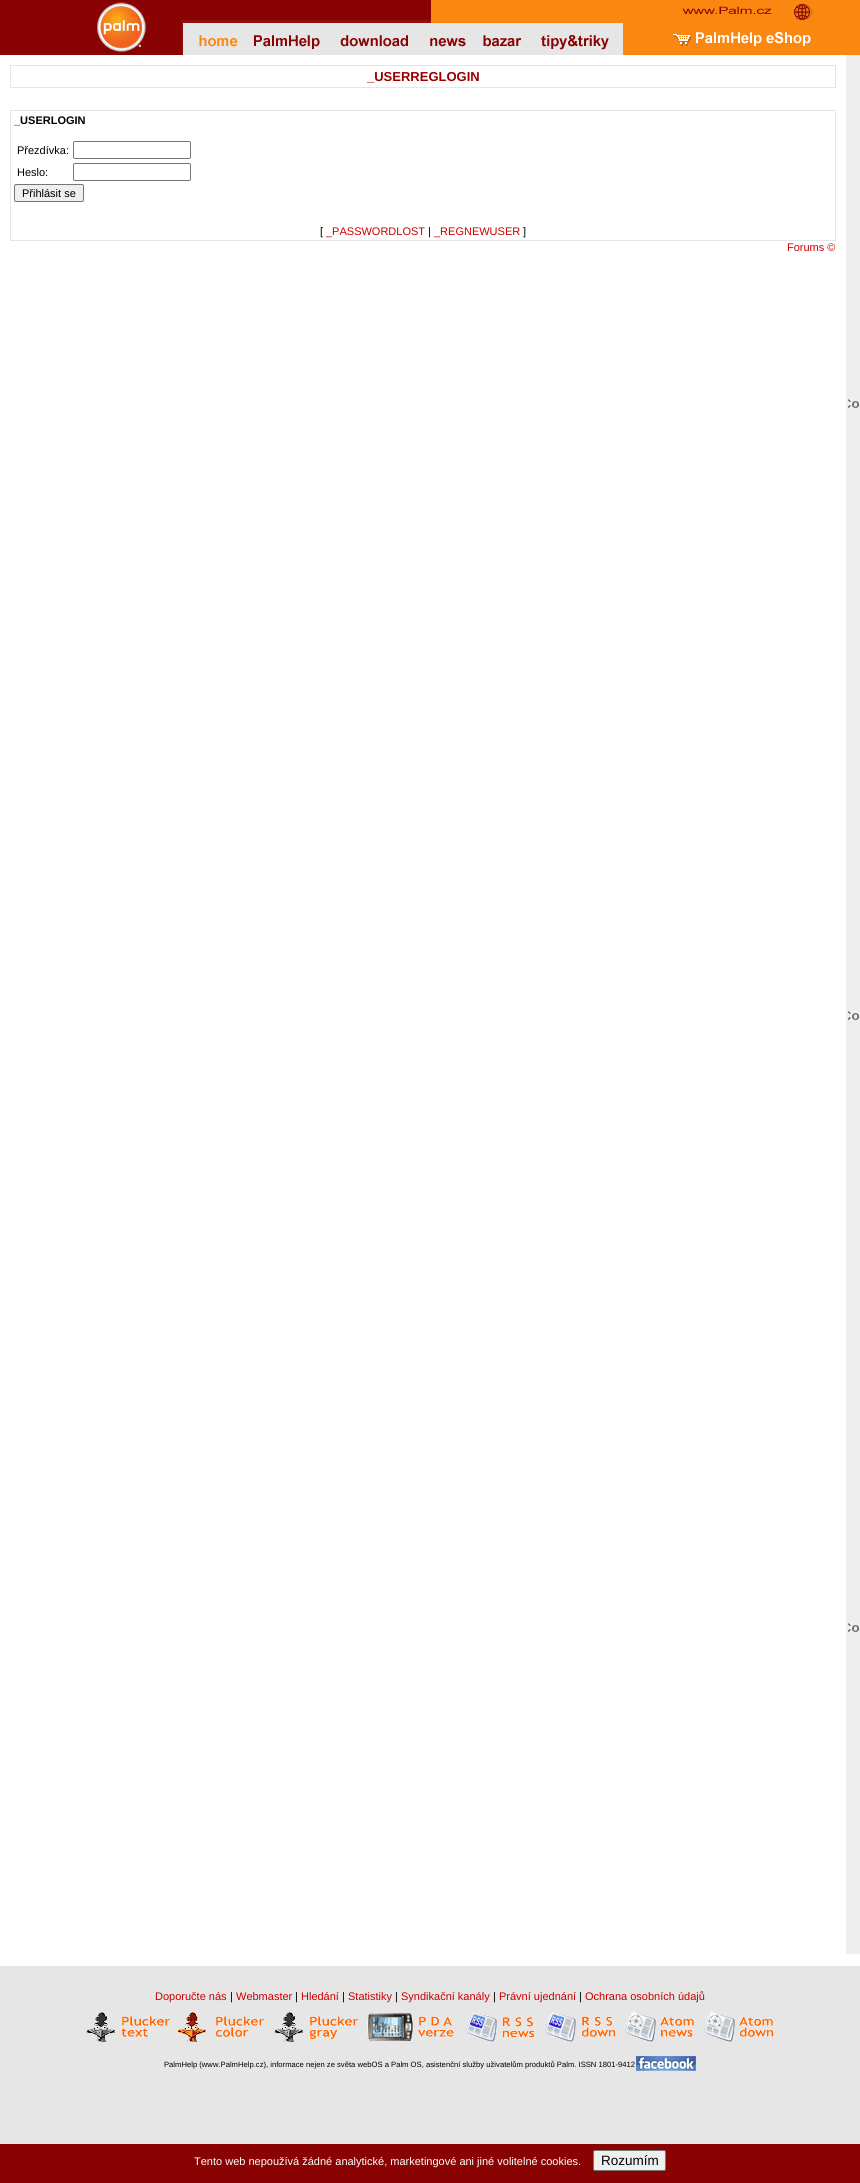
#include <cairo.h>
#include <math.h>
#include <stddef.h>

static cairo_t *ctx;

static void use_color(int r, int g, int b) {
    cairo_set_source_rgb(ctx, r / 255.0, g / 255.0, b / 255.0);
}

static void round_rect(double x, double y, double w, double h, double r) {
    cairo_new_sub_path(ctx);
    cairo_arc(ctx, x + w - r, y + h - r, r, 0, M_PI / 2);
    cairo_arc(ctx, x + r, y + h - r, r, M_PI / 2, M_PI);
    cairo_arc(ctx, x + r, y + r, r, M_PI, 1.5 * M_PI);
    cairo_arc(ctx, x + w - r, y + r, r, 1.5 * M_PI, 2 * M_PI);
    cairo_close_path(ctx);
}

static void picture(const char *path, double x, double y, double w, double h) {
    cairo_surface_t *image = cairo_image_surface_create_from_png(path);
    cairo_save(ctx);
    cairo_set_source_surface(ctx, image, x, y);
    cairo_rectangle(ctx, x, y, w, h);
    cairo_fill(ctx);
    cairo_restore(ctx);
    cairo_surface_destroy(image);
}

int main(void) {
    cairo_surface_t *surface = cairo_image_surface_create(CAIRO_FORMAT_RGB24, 860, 2183);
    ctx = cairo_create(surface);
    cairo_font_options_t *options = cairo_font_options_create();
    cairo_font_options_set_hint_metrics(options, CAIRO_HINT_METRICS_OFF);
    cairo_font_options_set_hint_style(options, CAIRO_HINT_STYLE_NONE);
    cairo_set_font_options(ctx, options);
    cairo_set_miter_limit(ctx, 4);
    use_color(230, 230, 230);
    cairo_paint(ctx);
    use_color(138, 3, 3);
    cairo_rectangle(ctx, 0, 0, 182, 55);
    cairo_fill(ctx);
    picture("img1.png", 97, 2, 49, 50);
    picture("img2.png", 182, 0, 606, 20);
    picture("img3.png", 788, 0, 30, 20);
    use_color(250, 135, 16);
    cairo_rectangle(ctx, 811, 20, 7, 35);
    cairo_fill(ctx);
    picture("img4.png", 182, 20, 629, 35);
    cairo_rectangle(ctx, 818, 0, 42, 55);
    cairo_fill(ctx);
    use_color(255, 255, 255);
    cairo_rectangle(ctx, 0, 55, 846, 1899);
    cairo_fill(ctx);
    use_color(238, 238, 238);
    cairo_rectangle(ctx, 846, 55, 14, 1899);
    cairo_fill(ctx);
    picture("img5.png", 848, 399, 12, 9);
    picture("img5.png", 848, 1011, 12, 9);
    picture("img5.png", 848, 1623, 12, 9);
    cairo_rectangle(ctx, 10.5, 65.5, 825, 22);
    use_color(230, 230, 230);
    cairo_set_line_width(ctx, 1);
    cairo_stroke(ctx);
    cairo_select_font_face(ctx, "Liberation Sans", CAIRO_FONT_SLANT_NORMAL, CAIRO_FONT_WEIGHT_BOLD);
    cairo_set_font_size(ctx, 13);
    use_color(153, 0, 0);
    cairo_move_to(ctx, 367, 81);
    cairo_show_text(ctx, "_USERREGLOGIN");
    cairo_rectangle(ctx, 10.5, 110.5, 825, 130);
    use_color(230, 230, 230);
    cairo_stroke(ctx);
    cairo_set_font_size(ctx, 11);
    use_color(0, 0, 0);
    cairo_move_to(ctx, 14, 124);
    cairo_show_text(ctx, "_USERLOGIN");
    cairo_select_font_face(ctx, "Liberation Sans", CAIRO_FONT_SLANT_NORMAL, CAIRO_FONT_WEIGHT_NORMAL);
    cairo_move_to(ctx, 17, 154);
    cairo_show_text(ctx, "Přezdívka:");
    round_rect(73.5, 141.5, 117, 17, 1.5);
    use_color(118, 118, 118);
    cairo_stroke(ctx);
    use_color(0, 0, 0);
    cairo_move_to(ctx, 17, 176);
    cairo_show_text(ctx, "Heslo:");
    round_rect(73.5, 163.5, 117, 17, 1.5);
    use_color(118, 118, 118);
    cairo_stroke(ctx);
    use_color(239, 239, 239);
    round_rect(14.5, 184.5, 69, 17, 1.5);
    cairo_fill_preserve(ctx);
    use_color(118, 118, 118);
    cairo_stroke(ctx);
    use_color(0, 0, 0);
    cairo_move_to(ctx, 22, 197);
    cairo_show_text(ctx, "Přihlásit se");
    cairo_move_to(ctx, 320, 235);
    cairo_show_text(ctx, "[");
    use_color(204, 0, 0);
    cairo_move_to(ctx, 326, 235);
    cairo_show_text(ctx, "_PASSWORDLOST");
    use_color(0, 0, 0);
    cairo_move_to(ctx, 428, 235);
    cairo_show_text(ctx, "|");
    use_color(204, 0, 0);
    cairo_move_to(ctx, 434, 235);
    cairo_show_text(ctx, "_REGNEWUSER");
    use_color(0, 0, 0);
    cairo_move_to(ctx, 523, 235);
    cairo_show_text(ctx, "]");
    use_color(204, 0, 0);
    cairo_move_to(ctx, 787, 251);
    cairo_show_text(ctx, "Forums ©");
    use_color(255, 255, 255);
    cairo_rectangle(ctx, 0, 1954, 860, 12);
    cairo_fill(ctx);
    use_color(204, 0, 0);
    cairo_move_to(ctx, 155, 2000);
    cairo_show_text(ctx, "Doporučte nás");
    use_color(0, 0, 0);
    cairo_move_to(ctx, 230, 2000);
    cairo_show_text(ctx, "|");
    use_color(204, 0, 0);
    cairo_move_to(ctx, 236, 2000);
    cairo_show_text(ctx, "Webmaster");
    use_color(0, 0, 0);
    cairo_move_to(ctx, 295, 2000);
    cairo_show_text(ctx, "|");
    use_color(204, 0, 0);
    cairo_move_to(ctx, 301, 2000);
    cairo_show_text(ctx, "Hledání");
    use_color(0, 0, 0);
    cairo_move_to(ctx, 342, 2000);
    cairo_show_text(ctx, "|");
    use_color(204, 0, 0);
    cairo_move_to(ctx, 348, 2000);
    cairo_show_text(ctx, "Statistiky");
    use_color(0, 0, 0);
    cairo_move_to(ctx, 395, 2000);
    cairo_show_text(ctx, "|");
    use_color(204, 0, 0);
    cairo_move_to(ctx, 401, 2000);
    cairo_show_text(ctx, "Syndikační kanály");
    use_color(0, 0, 0);
    cairo_move_to(ctx, 493, 2000);
    cairo_show_text(ctx, "|");
    use_color(204, 0, 0);
    cairo_move_to(ctx, 499, 2000);
    cairo_show_text(ctx, "Právní ujednání");
    use_color(0, 0, 0);
    cairo_move_to(ctx, 579, 2000);
    cairo_show_text(ctx, "|");
    use_color(204, 0, 0);
    cairo_move_to(ctx, 585, 2000);
    cairo_show_text(ctx, "Ochrana osobních údajů");
    picture("img6.png", 86, 2012, 85, 30);
    picture("img7.png", 177, 2012, 88, 30);
    picture("img8.png", 274, 2012, 85, 30);
    picture("img9.png", 367, 2013, 87, 28);
    picture("img10.png", 466, 2012, 69, 30);
    picture("img11.png", 545, 2012, 71, 30);
    picture("img12.png", 625, 2012, 69, 30);
    picture("img13.png", 704, 2012, 70, 30);
    cairo_set_font_size(ctx, 7.65);
    use_color(0, 0, 0);
    cairo_move_to(ctx, 164, 2067);
    cairo_show_text(ctx, "PalmHelp (www.PalmHelp.cz), informace nejen ze světa webOS a Palm OS, asistenční služby uživatelům produktů Palm. ISSN 1801-9412");
    picture("img14.png", 636, 2056, 60, 15);
    use_color(138, 3, 3);
    cairo_rectangle(ctx, 0, 2144, 860, 39);
    cairo_fill(ctx);
    cairo_set_font_size(ctx, 11);
    use_color(255, 255, 255);
    cairo_move_to(ctx, 194, 2165);
    cairo_show_text(ctx, "Tento web nepoužívá žádné analytické, marketingové ani jiné volitelné cookies.");
    use_color(239, 239, 239);
    round_rect(593.5, 2150.5, 72, 20, 1.5);
    cairo_fill_preserve(ctx);
    use_color(118, 118, 118);
    cairo_stroke(ctx);
    cairo_set_font_size(ctx, 13.5);
    use_color(0, 0, 0);
    cairo_move_to(ctx, 601, 2165);
    cairo_show_text(ctx, "Rozumím");
    cairo_surface_write_to_png(surface, "result.png");
    cairo_font_options_destroy(options);
    cairo_destroy(ctx);
    cairo_surface_destroy(surface);
    return 0;
}
